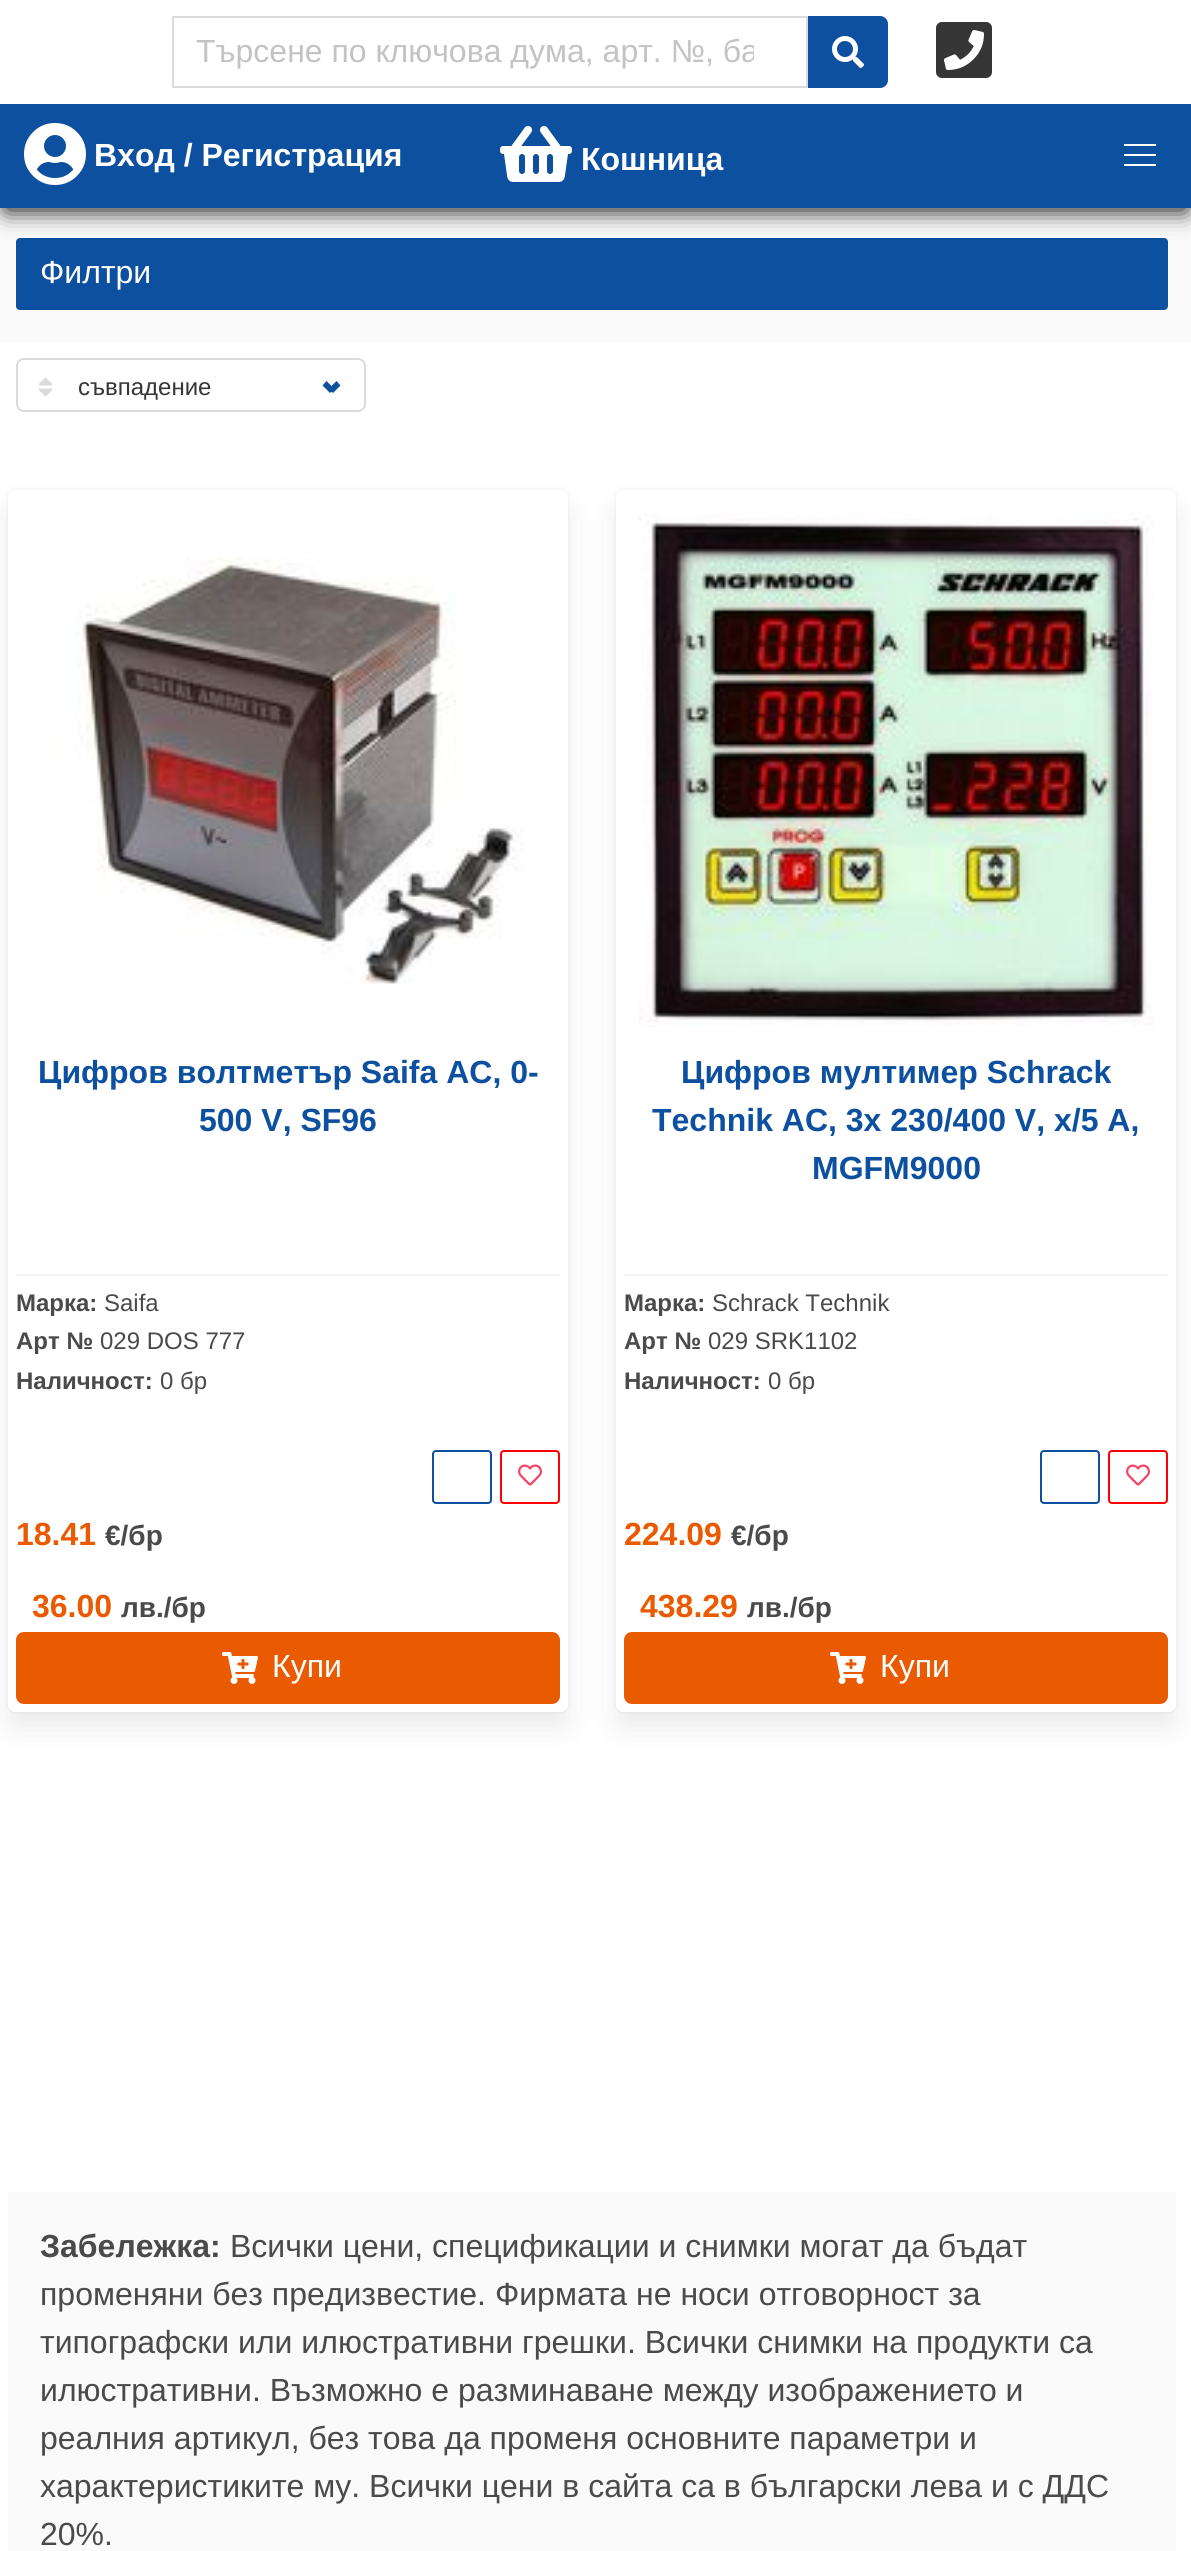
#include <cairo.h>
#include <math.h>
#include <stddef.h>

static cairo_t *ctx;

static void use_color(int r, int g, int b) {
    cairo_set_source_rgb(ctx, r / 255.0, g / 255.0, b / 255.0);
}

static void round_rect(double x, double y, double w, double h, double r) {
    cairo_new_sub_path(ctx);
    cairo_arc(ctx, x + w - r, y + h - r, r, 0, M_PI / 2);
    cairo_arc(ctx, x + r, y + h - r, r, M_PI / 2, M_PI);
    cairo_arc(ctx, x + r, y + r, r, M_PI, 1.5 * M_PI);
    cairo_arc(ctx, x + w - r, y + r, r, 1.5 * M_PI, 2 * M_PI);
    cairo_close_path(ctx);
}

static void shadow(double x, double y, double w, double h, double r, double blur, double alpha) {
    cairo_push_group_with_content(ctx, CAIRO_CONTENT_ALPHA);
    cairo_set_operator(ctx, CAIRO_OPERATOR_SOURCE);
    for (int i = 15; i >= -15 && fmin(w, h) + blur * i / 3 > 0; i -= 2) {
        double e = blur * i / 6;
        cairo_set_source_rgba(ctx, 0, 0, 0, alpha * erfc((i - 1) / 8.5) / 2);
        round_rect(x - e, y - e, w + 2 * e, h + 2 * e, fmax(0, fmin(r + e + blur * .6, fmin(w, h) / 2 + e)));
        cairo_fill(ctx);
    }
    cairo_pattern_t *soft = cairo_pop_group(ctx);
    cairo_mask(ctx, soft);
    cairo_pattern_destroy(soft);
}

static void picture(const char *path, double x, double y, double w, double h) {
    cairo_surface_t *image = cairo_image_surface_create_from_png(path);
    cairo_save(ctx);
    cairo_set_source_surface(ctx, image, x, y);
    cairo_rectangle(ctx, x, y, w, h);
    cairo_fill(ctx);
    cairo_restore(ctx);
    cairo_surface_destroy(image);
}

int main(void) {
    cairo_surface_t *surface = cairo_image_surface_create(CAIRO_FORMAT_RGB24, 1191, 2551);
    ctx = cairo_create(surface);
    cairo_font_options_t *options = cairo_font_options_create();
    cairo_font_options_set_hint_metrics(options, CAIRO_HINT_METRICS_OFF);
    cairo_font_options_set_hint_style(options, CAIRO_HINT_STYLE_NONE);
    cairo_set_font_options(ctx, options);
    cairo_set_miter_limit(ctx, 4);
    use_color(255, 255, 255);
    cairo_paint(ctx);
    use_color(250, 250, 250);
    cairo_rectangle(ctx, 0, 208, 1191, 134);
    cairo_fill(ctx);
    use_color(12, 80, 159);
    round_rect(16, 238, 1152, 72, 4);
    cairo_fill(ctx);
    use_color(0, 0, 0);
    shadow(6, 118, 1180, 92, 0, 12, 1);
    use_color(255, 255, 255);
    cairo_rectangle(ctx, 0, 90, 1191, 14);
    cairo_fill(ctx);
    cairo_rectangle(ctx, 173, 17, 634, 70);
    use_color(219, 219, 219);
    cairo_stroke(ctx);
    cairo_save(ctx);
    cairo_rectangle(ctx, 196, 34, 558, 36);
    cairo_clip(ctx);
    cairo_select_font_face(ctx, "Liberation Sans", CAIRO_FONT_SLANT_NORMAL, CAIRO_FONT_WEIGHT_NORMAL);
    cairo_set_font_size(ctx, 32);
    use_color(195, 195, 195);
    cairo_move_to(ctx, 196, 62);
    cairo_show_text(ctx, "Търсене по ключова дума, арт. №, ба");
    cairo_restore(ctx);
    use_color(12, 80, 159);
    cairo_new_path(ctx);
    cairo_move_to(ctx, 808, 16);
    cairo_line_to(ctx, 880, 16);
    cairo_curve_to(ctx, 884.5, 16, 888, 19.5, 888, 24);
    cairo_line_to(ctx, 888, 80);
    cairo_curve_to(ctx, 888, 84.5, 884.5, 88, 880, 88);
    cairo_line_to(ctx, 808, 88);
    cairo_close_path(ctx);
    cairo_fill(ctx);
    picture("img1.png", 832, 36, 32, 32);
    picture("img2.png", 936, 22, 56, 56);
    cairo_rectangle(ctx, 0, 104, 1191, 104);
    cairo_fill(ctx);
    picture("img3.png", 24, 123, 62, 62);
    cairo_select_font_face(ctx, "Liberation Sans", CAIRO_FONT_SLANT_NORMAL, CAIRO_FONT_WEIGHT_BOLD);
    cairo_set_font_size(ctx, 32);
    use_color(255, 255, 255);
    cairo_move_to(ctx, 94, 166);
    cairo_show_text(ctx, "Вход / Регистрация");
    picture("img4.png", 500, 126, 72, 56);
    cairo_move_to(ctx, 581, 170);
    cairo_show_text(ctx, "Кошница");
    cairo_rectangle(ctx, 1124, 144, 32, 2);
    cairo_fill(ctx);
    cairo_rectangle(ctx, 1124, 154, 32, 2);
    cairo_fill(ctx);
    cairo_rectangle(ctx, 1124, 164, 32, 2);
    cairo_fill(ctx);
    cairo_select_font_face(ctx, "Liberation Sans", CAIRO_FONT_SLANT_NORMAL, CAIRO_FONT_WEIGHT_NORMAL);
    cairo_move_to(ctx, 40, 283);
    cairo_show_text(ctx, "Филтри");
    round_rect(17, 359, 348, 52, 7);
    use_color(219, 219, 219);
    cairo_stroke(ctx);
    picture("img5.png", 38, 377, 15, 20);
    cairo_set_font_size(ctx, 24);
    use_color(54, 54, 54);
    cairo_move_to(ctx, 78, 395);
    cairo_show_text(ctx, "съвпадение");
    use_color(12, 80, 159);
    cairo_new_path(ctx);
    cairo_move_to(ctx, 328.5, 389);
    cairo_line_to(ctx, 336.5, 381);
    cairo_line_to(ctx, 340.5, 385.5);
    cairo_line_to(ctx, 333, 393);
    cairo_close_path(ctx);
    cairo_fill(ctx);
    cairo_new_path(ctx);
    cairo_move_to(ctx, 322.5, 385.5);
    cairo_line_to(ctx, 326.5, 381);
    cairo_line_to(ctx, 334.5, 389);
    cairo_line_to(ctx, 330, 393);
    cairo_close_path(ctx);
    cairo_fill(ctx);
    round_rect(7, 489, 562, 1224, 9);
    use_color(250, 250, 250);
    cairo_stroke(ctx);
    use_color(10, 10, 10);
    shadow(12, 510, 552, 1214, 4, 16, 0.1);
    use_color(255, 255, 255);
    round_rect(8, 490, 560, 1222, 8);
    cairo_fill(ctx);
    picture("img6.png", 54, 557, 470, 427);
    cairo_select_font_face(ctx, "Liberation Sans", CAIRO_FONT_SLANT_NORMAL, CAIRO_FONT_WEIGHT_BOLD);
    cairo_set_font_size(ctx, 32);
    use_color(12, 80, 159);
    cairo_move_to(ctx, 38, 1083);
    cairo_show_text(ctx, "Цифров волтметър Saifa AC, 0-");
    cairo_move_to(ctx, 199, 1131);
    cairo_show_text(ctx, "500 V, SF96");
    use_color(241, 241, 241);
    cairo_rectangle(ctx, 16, 1274, 544, 2);
    cairo_fill(ctx);
    cairo_set_font_size(ctx, 24);
    use_color(74, 74, 74);
    cairo_move_to(ctx, 16, 1311);
    cairo_show_text(ctx, "Марка:");
    cairo_select_font_face(ctx, "Liberation Sans", CAIRO_FONT_SLANT_NORMAL, CAIRO_FONT_WEIGHT_NORMAL);
    cairo_move_to(ctx, 104, 1311);
    cairo_show_text(ctx, "Saifa");
    cairo_select_font_face(ctx, "Liberation Sans", CAIRO_FONT_SLANT_NORMAL, CAIRO_FONT_WEIGHT_BOLD);
    cairo_move_to(ctx, 16, 1349);
    cairo_show_text(ctx, "Арт №");
    cairo_select_font_face(ctx, "Liberation Sans", CAIRO_FONT_SLANT_NORMAL, CAIRO_FONT_WEIGHT_NORMAL);
    cairo_move_to(ctx, 100, 1349);
    cairo_show_text(ctx, "029 DOS 777");
    cairo_select_font_face(ctx, "Liberation Sans", CAIRO_FONT_SLANT_NORMAL, CAIRO_FONT_WEIGHT_BOLD);
    cairo_move_to(ctx, 16, 1389);
    cairo_show_text(ctx, "Наличност:");
    cairo_select_font_face(ctx, "Liberation Sans", CAIRO_FONT_SLANT_NORMAL, CAIRO_FONT_WEIGHT_NORMAL);
    cairo_move_to(ctx, 160, 1389);
    cairo_show_text(ctx, "0 бр");
    round_rect(433, 1451, 58, 52, 3);
    use_color(12, 80, 159);
    cairo_stroke(ctx);
    round_rect(501, 1451, 58, 52, 3);
    use_color(255, 0, 0);
    cairo_stroke(ctx);
    picture("img7.png", 518, 1464, 25, 22);
    cairo_select_font_face(ctx, "Liberation Sans", CAIRO_FONT_SLANT_NORMAL, CAIRO_FONT_WEIGHT_BOLD);
    cairo_set_font_size(ctx, 32);
    use_color(234, 90, 0);
    cairo_move_to(ctx, 16, 1545);
    cairo_show_text(ctx, "18.41");
    cairo_set_font_size(ctx, 28);
    use_color(74, 74, 74);
    cairo_move_to(ctx, 105, 1545);
    cairo_show_text(ctx, "€/бр");
    cairo_set_font_size(ctx, 32);
    use_color(234, 90, 0);
    cairo_move_to(ctx, 32, 1617);
    cairo_show_text(ctx, "36.00");
    cairo_set_font_size(ctx, 28);
    use_color(74, 74, 74);
    cairo_move_to(ctx, 121, 1617);
    cairo_show_text(ctx, "лв./бр");
    use_color(234, 90, 0);
    round_rect(16, 1632, 544, 72, 8);
    cairo_fill(ctx);
    picture("img8.png", 222, 1652, 36, 32);
    cairo_select_font_face(ctx, "Liberation Sans", CAIRO_FONT_SLANT_NORMAL, CAIRO_FONT_WEIGHT_NORMAL);
    cairo_set_font_size(ctx, 32);
    use_color(255, 255, 255);
    cairo_move_to(ctx, 272, 1677);
    cairo_show_text(ctx, "Купи");
    round_rect(615, 489, 562, 1224, 9);
    use_color(250, 250, 250);
    cairo_stroke(ctx);
    use_color(10, 10, 10);
    shadow(620, 510, 552, 1214, 4, 16, 0.1);
    use_color(255, 255, 255);
    round_rect(616, 490, 560, 1222, 8);
    cairo_fill(ctx);
    picture("img9.png", 638, 513, 516, 514);
    cairo_select_font_face(ctx, "Liberation Sans", CAIRO_FONT_SLANT_NORMAL, CAIRO_FONT_WEIGHT_BOLD);
    use_color(12, 80, 159);
    cairo_move_to(ctx, 681, 1083);
    cairo_show_text(ctx, "Цифров мултимер Schrack");
    cairo_move_to(ctx, 652, 1131);
    cairo_show_text(ctx, "Technik AC, 3x 230/400 V, x/5 A,");
    cairo_move_to(ctx, 812, 1179);
    cairo_show_text(ctx, "MGFM9000");
    use_color(241, 241, 241);
    cairo_rectangle(ctx, 624, 1274, 544, 2);
    cairo_fill(ctx);
    cairo_set_font_size(ctx, 24);
    use_color(74, 74, 74);
    cairo_move_to(ctx, 624, 1311);
    cairo_show_text(ctx, "Марка:");
    cairo_select_font_face(ctx, "Liberation Sans", CAIRO_FONT_SLANT_NORMAL, CAIRO_FONT_WEIGHT_NORMAL);
    cairo_move_to(ctx, 712, 1311);
    cairo_show_text(ctx, "Schrack Technik");
    cairo_select_font_face(ctx, "Liberation Sans", CAIRO_FONT_SLANT_NORMAL, CAIRO_FONT_WEIGHT_BOLD);
    cairo_move_to(ctx, 624, 1349);
    cairo_show_text(ctx, "Арт №");
    cairo_select_font_face(ctx, "Liberation Sans", CAIRO_FONT_SLANT_NORMAL, CAIRO_FONT_WEIGHT_NORMAL);
    cairo_move_to(ctx, 708, 1349);
    cairo_show_text(ctx, "029 SRK1102");
    cairo_select_font_face(ctx, "Liberation Sans", CAIRO_FONT_SLANT_NORMAL, CAIRO_FONT_WEIGHT_BOLD);
    cairo_move_to(ctx, 624, 1389);
    cairo_show_text(ctx, "Наличност:");
    cairo_select_font_face(ctx, "Liberation Sans", CAIRO_FONT_SLANT_NORMAL, CAIRO_FONT_WEIGHT_NORMAL);
    cairo_move_to(ctx, 768, 1389);
    cairo_show_text(ctx, "0 бр");
    round_rect(1041, 1451, 58, 52, 3);
    use_color(12, 80, 159);
    cairo_stroke(ctx);
    round_rect(1109, 1451, 58, 52, 3);
    use_color(255, 0, 0);
    cairo_stroke(ctx);
    picture("img7.png", 1126, 1464, 25, 22);
    cairo_select_font_face(ctx, "Liberation Sans", CAIRO_FONT_SLANT_NORMAL, CAIRO_FONT_WEIGHT_BOLD);
    cairo_set_font_size(ctx, 32);
    use_color(234, 90, 0);
    cairo_move_to(ctx, 624, 1545);
    cairo_show_text(ctx, "224.09");
    cairo_set_font_size(ctx, 28);
    use_color(74, 74, 74);
    cairo_move_to(ctx, 731, 1545);
    cairo_show_text(ctx, "€/бр");
    cairo_set_font_size(ctx, 32);
    use_color(234, 90, 0);
    cairo_move_to(ctx, 640, 1617);
    cairo_show_text(ctx, "438.29");
    cairo_set_font_size(ctx, 28);
    use_color(74, 74, 74);
    cairo_move_to(ctx, 747, 1617);
    cairo_show_text(ctx, "лв./бр");
    use_color(234, 90, 0);
    round_rect(624, 1632, 544, 72, 8);
    cairo_fill(ctx);
    picture("img8.png", 830, 1652, 36, 32);
    cairo_select_font_face(ctx, "Liberation Sans", CAIRO_FONT_SLANT_NORMAL, CAIRO_FONT_WEIGHT_NORMAL);
    cairo_set_font_size(ctx, 32);
    use_color(255, 255, 255);
    cairo_move_to(ctx, 880, 1677);
    cairo_show_text(ctx, "Купи");
    use_color(250, 250, 250);
    cairo_rectangle(ctx, 8, 2192, 1168, 359);
    cairo_fill(ctx);
    cairo_select_font_face(ctx, "Liberation Sans", CAIRO_FONT_SLANT_NORMAL, CAIRO_FONT_WEIGHT_BOLD);
    use_color(74, 74, 74);
    cairo_move_to(ctx, 40, 2257);
    cairo_show_text(ctx, "Забележка:");
    cairo_select_font_face(ctx, "Liberation Sans", CAIRO_FONT_SLANT_NORMAL, CAIRO_FONT_WEIGHT_NORMAL);
    cairo_move_to(ctx, 230, 2257);
    cairo_show_text(ctx, "Всички цени, спецификации и снимки могат да бъдат");
    cairo_move_to(ctx, 40, 2305);
    cairo_show_text(ctx, "променяни без предизвестие. Фирмата не носи отговорност за");
    cairo_move_to(ctx, 40, 2353);
    cairo_show_text(ctx, "типографски или илюстративни грешки. Всички снимки на продукти са");
    cairo_move_to(ctx, 40, 2401);
    cairo_show_text(ctx, "илюстративни. Възможно е разминаване между изображението и");
    cairo_move_to(ctx, 40, 2449);
    cairo_show_text(ctx, "реалния артикул, без това да променя основните параметри и");
    cairo_move_to(ctx, 40, 2497);
    cairo_show_text(ctx, "характеристиките му. Всички цени в сайта са в български лева и с ДДС");
    cairo_move_to(ctx, 40, 2545);
    cairo_show_text(ctx, "20%.");
    cairo_surface_write_to_png(surface, "result.png");
    cairo_font_options_destroy(options);
    cairo_destroy(ctx);
    cairo_surface_destroy(surface);
    return 0;
}
